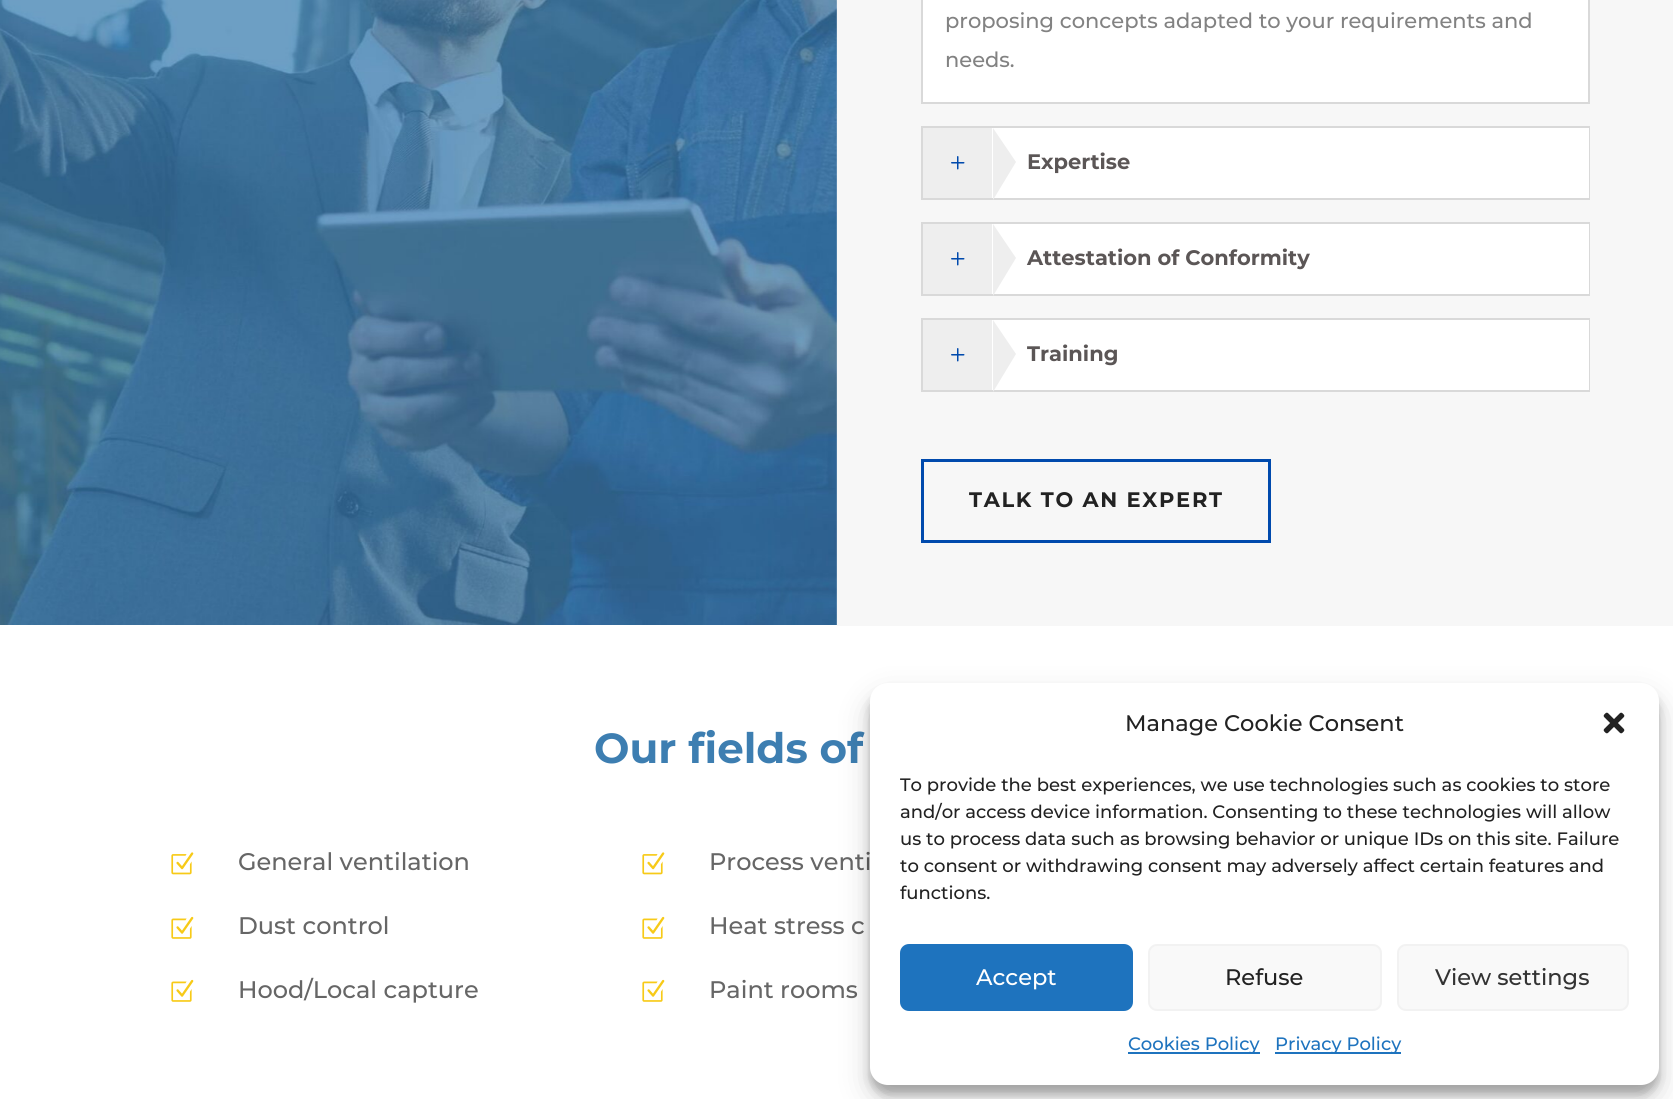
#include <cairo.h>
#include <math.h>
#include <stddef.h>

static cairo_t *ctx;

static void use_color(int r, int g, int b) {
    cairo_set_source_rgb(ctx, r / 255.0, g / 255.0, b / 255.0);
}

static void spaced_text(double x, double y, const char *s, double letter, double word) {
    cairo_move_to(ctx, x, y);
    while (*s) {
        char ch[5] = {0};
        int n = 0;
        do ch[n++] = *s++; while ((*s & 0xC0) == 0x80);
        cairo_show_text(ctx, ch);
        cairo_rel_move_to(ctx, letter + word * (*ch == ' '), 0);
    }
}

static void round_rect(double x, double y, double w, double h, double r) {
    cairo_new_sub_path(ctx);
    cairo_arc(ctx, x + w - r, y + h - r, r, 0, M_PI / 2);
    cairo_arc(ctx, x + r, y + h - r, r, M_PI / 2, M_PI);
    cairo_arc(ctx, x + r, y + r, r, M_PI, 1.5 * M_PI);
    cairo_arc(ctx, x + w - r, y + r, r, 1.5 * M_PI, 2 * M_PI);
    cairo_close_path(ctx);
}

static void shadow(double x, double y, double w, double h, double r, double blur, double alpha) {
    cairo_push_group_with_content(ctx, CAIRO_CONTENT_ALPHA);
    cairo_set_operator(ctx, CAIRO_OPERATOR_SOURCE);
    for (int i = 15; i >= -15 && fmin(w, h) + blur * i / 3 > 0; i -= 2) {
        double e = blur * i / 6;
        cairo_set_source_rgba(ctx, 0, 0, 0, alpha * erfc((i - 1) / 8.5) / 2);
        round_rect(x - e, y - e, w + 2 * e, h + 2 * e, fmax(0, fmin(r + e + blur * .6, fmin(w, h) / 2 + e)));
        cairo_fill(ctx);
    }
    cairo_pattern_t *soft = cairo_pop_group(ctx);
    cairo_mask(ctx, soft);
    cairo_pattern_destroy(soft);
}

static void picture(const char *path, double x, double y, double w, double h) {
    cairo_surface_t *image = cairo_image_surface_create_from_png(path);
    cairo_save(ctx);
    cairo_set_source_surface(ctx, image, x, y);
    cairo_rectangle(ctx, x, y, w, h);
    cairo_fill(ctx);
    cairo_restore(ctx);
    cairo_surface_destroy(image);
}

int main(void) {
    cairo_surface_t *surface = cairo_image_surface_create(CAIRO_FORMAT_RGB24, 1673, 1099);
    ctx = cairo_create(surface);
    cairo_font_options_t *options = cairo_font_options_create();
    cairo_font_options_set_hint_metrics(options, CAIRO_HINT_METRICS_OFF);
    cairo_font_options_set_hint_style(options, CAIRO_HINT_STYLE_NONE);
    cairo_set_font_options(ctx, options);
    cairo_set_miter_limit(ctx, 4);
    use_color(255, 255, 255);
    cairo_paint(ctx);
    picture("img1.png", 0, 0, 837, 625);
    use_color(247, 247, 247);
    cairo_rectangle(ctx, 837, 0, 836, 626);
    cairo_fill(ctx);
    use_color(255, 255, 255);
    cairo_rectangle(ctx, 922, -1, 667, 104);
    cairo_fill_preserve(ctx);
    use_color(217, 217, 217);
    cairo_stroke(ctx);
    cairo_select_font_face(ctx, "Montserrat Medium", CAIRO_FONT_SLANT_NORMAL, CAIRO_FONT_WEIGHT_NORMAL);
    cairo_set_font_size(ctx, 21);
    use_color(130, 130, 130);
    cairo_move_to(ctx, 945, 28);
    cairo_show_text(ctx, "proposing concepts adapted to your requirements and");
    cairo_move_to(ctx, 945, 67);
    cairo_show_text(ctx, "needs.");
    cairo_rectangle(ctx, 922, 127, 667, 72);
    use_color(217, 217, 217);
    cairo_stroke(ctx);
    use_color(255, 255, 255);
    cairo_rectangle(ctx, 992, 128, 597, 70);
    cairo_fill(ctx);
    use_color(238, 238, 238);
    cairo_rectangle(ctx, 923, 128, 69, 70);
    cairo_fill(ctx);
    picture("img2.png", 951, 156, 14, 14);
    cairo_new_path(ctx);
    cairo_move_to(ctx, 993, 200);
    cairo_line_to(ctx, 993, 128);
    cairo_line_to(ctx, 1016, 162);
    cairo_close_path(ctx);
    cairo_fill(ctx);
    cairo_select_font_face(ctx, "Montserrat", CAIRO_FONT_SLANT_NORMAL, CAIRO_FONT_WEIGHT_BOLD);
    use_color(91, 86, 86);
    cairo_move_to(ctx, 1027, 169);
    cairo_show_text(ctx, "Expertise");
    cairo_rectangle(ctx, 922, 223, 667, 72);
    use_color(217, 217, 217);
    cairo_stroke(ctx);
    use_color(255, 255, 255);
    cairo_rectangle(ctx, 992, 224, 597, 70);
    cairo_fill(ctx);
    use_color(238, 238, 238);
    cairo_rectangle(ctx, 923, 224, 69, 70);
    cairo_fill(ctx);
    picture("img2.png", 951, 252, 14, 14);
    cairo_new_path(ctx);
    cairo_move_to(ctx, 993, 296);
    cairo_line_to(ctx, 993, 224);
    cairo_line_to(ctx, 1016, 258);
    cairo_close_path(ctx);
    cairo_fill(ctx);
    use_color(91, 86, 86);
    cairo_move_to(ctx, 1027, 265);
    cairo_show_text(ctx, "Attestation of Conformity");
    cairo_rectangle(ctx, 922, 319, 667, 72);
    use_color(217, 217, 217);
    cairo_stroke(ctx);
    use_color(255, 255, 255);
    cairo_rectangle(ctx, 992, 320, 597, 70);
    cairo_fill(ctx);
    use_color(238, 238, 238);
    cairo_rectangle(ctx, 923, 320, 69, 70);
    cairo_fill(ctx);
    picture("img2.png", 951, 348, 14, 14);
    cairo_new_path(ctx);
    cairo_move_to(ctx, 993, 392);
    cairo_line_to(ctx, 993, 320);
    cairo_line_to(ctx, 1016, 354);
    cairo_close_path(ctx);
    cairo_fill(ctx);
    use_color(91, 86, 86);
    cairo_move_to(ctx, 1027, 361);
    cairo_show_text(ctx, "Training");
    cairo_rectangle(ctx, 922.5, 460.5, 347, 81);
    use_color(0, 74, 173);
    cairo_set_line_width(ctx, 3);
    cairo_stroke(ctx);
    use_color(34, 34, 34);
    spaced_text(969, 507, "TALK TO AN EXPERT", 1.7, 0);
    cairo_set_font_size(ctx, 42);
    use_color(61, 126, 177);
    cairo_move_to(ctx, 594, 763);
    cairo_show_text(ctx, "Our fields of");
    picture("img3.png", 171, 852, 23, 23);
    cairo_select_font_face(ctx, "Montserrat Medium", CAIRO_FONT_SLANT_NORMAL, CAIRO_FONT_WEIGHT_NORMAL);
    cairo_set_font_size(ctx, 24);
    use_color(102, 102, 102);
    cairo_move_to(ctx, 238, 870);
    cairo_show_text(ctx, "General ventilation");
    picture("img4.png", 171, 916, 23, 23);
    cairo_move_to(ctx, 238, 934);
    cairo_show_text(ctx, "Dust control");
    picture("img4.png", 171, 979, 23, 23);
    cairo_move_to(ctx, 238, 998);
    cairo_show_text(ctx, "Hood/Local capture");
    picture("img3.png", 642, 852, 23, 23);
    cairo_move_to(ctx, 709, 870);
    cairo_show_text(ctx, "Process venti");
    picture("img4.png", 642, 916, 23, 23);
    cairo_move_to(ctx, 709, 934);
    cairo_show_text(ctx, "Heat stress c");
    picture("img4.png", 642, 979, 23, 23);
    cairo_move_to(ctx, 709, 998);
    cairo_show_text(ctx, "Paint rooms");
    use_color(0, 0, 0);
    shadow(870, 692, 789, 402, 18, 4.5, 0.23);
    shadow(870, 698, 789, 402, 18, 15, 0.19);
    use_color(255, 255, 255);
    round_rect(870, 683, 789, 402, 18);
    cairo_fill(ctx);
    cairo_set_font_size(ctx, 22.5);
    use_color(34, 34, 34);
    cairo_move_to(ctx, 1125, 731);
    cairo_show_text(ctx, "Manage Cookie Consent");
    picture("img5.png", 1603, 712, 22, 22);
    cairo_set_font_size(ctx, 18);
    cairo_move_to(ctx, 900, 791);
    cairo_show_text(ctx, "To provide the best experiences, we use technologies such as cookies to store");
    cairo_move_to(ctx, 900, 818);
    cairo_show_text(ctx, "and/or access device information. Consenting to these technologies will allow");
    cairo_move_to(ctx, 900, 845);
    cairo_show_text(ctx, "us to process data such as browsing behavior or unique IDs on this site. Failure");
    cairo_move_to(ctx, 900, 872);
    cairo_show_text(ctx, "to consent or withdrawing consent may adversely affect certain features and");
    cairo_move_to(ctx, 900, 899);
    cairo_show_text(ctx, "functions.");
    use_color(30, 115, 190);
    round_rect(901, 945, 231, 65, 8);
    cairo_fill_preserve(ctx);
    cairo_set_line_width(ctx, 2);
    cairo_stroke(ctx);
    cairo_set_font_size(ctx, 22.5);
    use_color(255, 255, 255);
    cairo_move_to(ctx, 976, 985);
    cairo_show_text(ctx, "Accept");
    use_color(249, 249, 249);
    round_rect(1149, 945, 232, 65, 8);
    cairo_fill_preserve(ctx);
    use_color(242, 242, 242);
    cairo_stroke(ctx);
    use_color(34, 34, 34);
    cairo_move_to(ctx, 1225, 985);
    cairo_show_text(ctx, "Refuse");
    use_color(249, 249, 249);
    round_rect(1398, 945, 230, 65, 8);
    cairo_fill_preserve(ctx);
    use_color(242, 242, 242);
    cairo_stroke(ctx);
    use_color(51, 51, 51);
    cairo_move_to(ctx, 1435, 985);
    cairo_show_text(ctx, "View settings");
    use_color(30, 115, 190);
    cairo_rectangle(ctx, 1128, 1052, 132, 2);
    cairo_fill(ctx);
    cairo_set_font_size(ctx, 18);
    cairo_move_to(ctx, 1128, 1050);
    cairo_show_text(ctx, "Cookies Policy");
    cairo_rectangle(ctx, 1275, 1052, 126, 2);
    cairo_fill(ctx);
    cairo_move_to(ctx, 1275, 1050);
    cairo_show_text(ctx, "Privacy Policy");
    cairo_surface_write_to_png(surface, "result.png");
    cairo_font_options_destroy(options);
    cairo_destroy(ctx);
    cairo_surface_destroy(surface);
    return 0;
}
